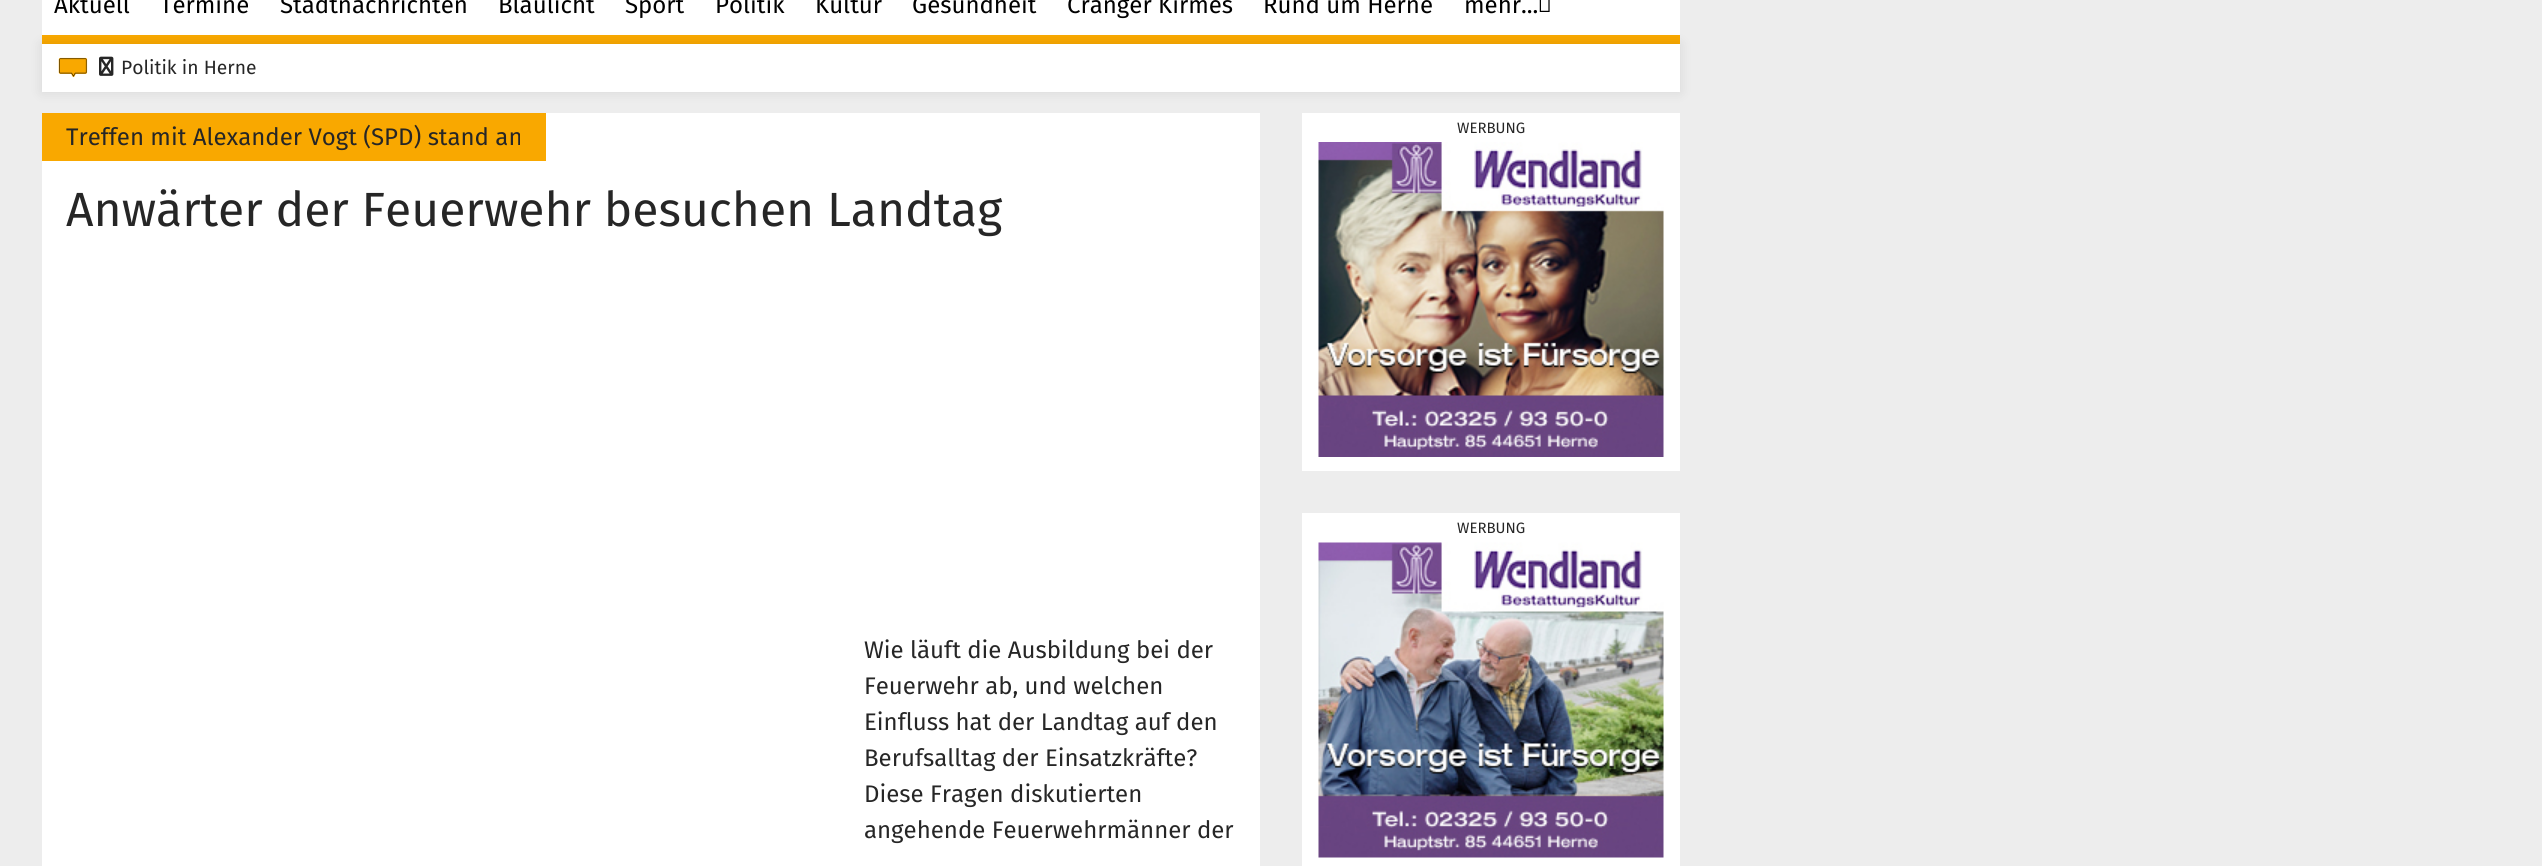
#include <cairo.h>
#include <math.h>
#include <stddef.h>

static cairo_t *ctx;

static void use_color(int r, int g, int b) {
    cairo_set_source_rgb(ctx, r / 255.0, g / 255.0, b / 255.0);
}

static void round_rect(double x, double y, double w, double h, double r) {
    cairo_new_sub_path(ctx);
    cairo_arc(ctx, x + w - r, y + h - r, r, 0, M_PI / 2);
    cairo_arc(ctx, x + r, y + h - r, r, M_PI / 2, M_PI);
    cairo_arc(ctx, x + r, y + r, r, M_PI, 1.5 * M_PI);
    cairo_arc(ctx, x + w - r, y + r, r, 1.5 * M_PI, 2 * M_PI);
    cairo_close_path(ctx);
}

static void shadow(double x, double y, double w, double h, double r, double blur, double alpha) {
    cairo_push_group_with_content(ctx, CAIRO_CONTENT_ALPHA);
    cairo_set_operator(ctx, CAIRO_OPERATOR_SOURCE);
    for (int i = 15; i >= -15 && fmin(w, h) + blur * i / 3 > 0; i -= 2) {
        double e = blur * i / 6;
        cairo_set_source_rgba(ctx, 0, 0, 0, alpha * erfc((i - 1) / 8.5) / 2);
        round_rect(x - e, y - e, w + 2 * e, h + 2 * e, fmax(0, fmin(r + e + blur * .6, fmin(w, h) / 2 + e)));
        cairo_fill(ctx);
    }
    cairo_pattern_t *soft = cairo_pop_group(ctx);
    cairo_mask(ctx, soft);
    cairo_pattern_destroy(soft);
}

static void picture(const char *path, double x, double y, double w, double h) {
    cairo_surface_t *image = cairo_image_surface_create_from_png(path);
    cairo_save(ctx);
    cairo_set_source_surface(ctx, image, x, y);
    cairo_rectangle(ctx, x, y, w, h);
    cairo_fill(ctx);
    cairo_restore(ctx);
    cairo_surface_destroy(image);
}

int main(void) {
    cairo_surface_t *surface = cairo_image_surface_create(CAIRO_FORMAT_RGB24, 2542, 866);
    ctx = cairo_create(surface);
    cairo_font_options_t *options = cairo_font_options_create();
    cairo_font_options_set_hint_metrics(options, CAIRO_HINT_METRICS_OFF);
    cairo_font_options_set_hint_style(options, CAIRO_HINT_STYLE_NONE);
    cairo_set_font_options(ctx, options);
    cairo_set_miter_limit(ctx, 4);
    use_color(237, 237, 237);
    cairo_paint(ctx);
    use_color(255, 255, 255);
    cairo_rectangle(ctx, 42, 0, 1638, 35);
    cairo_fill(ctx);
    use_color(249, 168, 0);
    cairo_rectangle(ctx, 42, 35, 1638, 9);
    cairo_fill(ctx);
    cairo_select_font_face(ctx, "Fira Sans", CAIRO_FONT_SLANT_NORMAL, CAIRO_FONT_WEIGHT_NORMAL);
    cairo_set_font_size(ctx, 24);
    use_color(0, 0, 0);
    cairo_move_to(ctx, 54, 13);
    cairo_show_text(ctx, "Aktuell");
    cairo_move_to(ctx, 160, 13);
    cairo_show_text(ctx, "Termine");
    cairo_move_to(ctx, 280, 13);
    cairo_show_text(ctx, "Stadtnachrichten");
    cairo_move_to(ctx, 498, 13);
    cairo_show_text(ctx, "Blaulicht");
    cairo_move_to(ctx, 625, 13);
    cairo_show_text(ctx, "Sport");
    cairo_move_to(ctx, 715, 13);
    cairo_show_text(ctx, "Politik");
    cairo_move_to(ctx, 815, 13);
    cairo_show_text(ctx, "Kultur");
    cairo_move_to(ctx, 912, 13);
    cairo_show_text(ctx, "Gesundheit");
    cairo_move_to(ctx, 1067, 13);
    cairo_show_text(ctx, "Cranger Kirmes");
    cairo_move_to(ctx, 1263, 13);
    cairo_show_text(ctx, "Rund um Herne");
    cairo_move_to(ctx, 1464, 13);
    cairo_show_text(ctx, "mehr...");
    picture("img1.png", 1539, 0, 11, 12);
    use_color(0, 0, 0);
    shadow(42, 44, 1638, 48, 0, 6, 0.1);
    use_color(255, 255, 255);
    cairo_rectangle(ctx, 42, 44, 1638, 48);
    cairo_fill(ctx);
    picture("img2.png", 58, 57, 30, 21);
    picture("img3.png", 99, 56, 15, 20);
    cairo_set_font_size(ctx, 19.25);
    use_color(38, 38, 38);
    cairo_move_to(ctx, 121, 74);
    cairo_show_text(ctx, "Politik in Herne");
    use_color(255, 255, 255);
    cairo_rectangle(ctx, 42, 113, 1218, 753);
    cairo_fill(ctx);
    use_color(249, 168, 0);
    cairo_rectangle(ctx, 42, 113, 504, 48);
    cairo_fill(ctx);
    cairo_set_font_size(ctx, 24);
    use_color(38, 38, 38);
    cairo_move_to(ctx, 66, 145);
    cairo_show_text(ctx, "Treffen mit Alexander Vogt (SPD) stand an");
    cairo_set_font_size(ctx, 48);
    cairo_move_to(ctx, 66, 226);
    cairo_show_text(ctx, "Anwärter der Feuerwehr besuchen Landtag");
    cairo_set_font_size(ctx, 24);
    cairo_move_to(ctx, 864, 658);
    cairo_show_text(ctx, "Wie läuft die Ausbildung bei der");
    cairo_move_to(ctx, 864, 694);
    cairo_show_text(ctx, "Feuerwehr ab, und welchen");
    cairo_move_to(ctx, 864, 730);
    cairo_show_text(ctx, "Einfluss hat der Landtag auf den");
    cairo_move_to(ctx, 864, 766);
    cairo_show_text(ctx, "Berufsalltag der Einsatzkräfte?");
    cairo_move_to(ctx, 864, 802);
    cairo_show_text(ctx, "Diese Fragen diskutierten");
    cairo_move_to(ctx, 864, 838);
    cairo_show_text(ctx, "angehende Feuerwehrmänner der");
    use_color(255, 255, 255);
    cairo_rectangle(ctx, 1302, 113, 378, 358);
    cairo_fill(ctx);
    cairo_set_font_size(ctx, 15);
    use_color(38, 38, 38);
    cairo_move_to(ctx, 1457, 133);
    cairo_show_text(ctx, "WERBUNG");
    picture("img4.png", 1318, 142, 346, 315);
    use_color(255, 255, 255);
    cairo_rectangle(ctx, 1302, 513, 378, 353);
    cairo_fill(ctx);
    use_color(38, 38, 38);
    cairo_move_to(ctx, 1457, 533);
    cairo_show_text(ctx, "WERBUNG");
    picture("img5.png", 1318, 542, 346, 316);
    cairo_surface_write_to_png(surface, "result.png");
    cairo_font_options_destroy(options);
    cairo_destroy(ctx);
    cairo_surface_destroy(surface);
    return 0;
}
